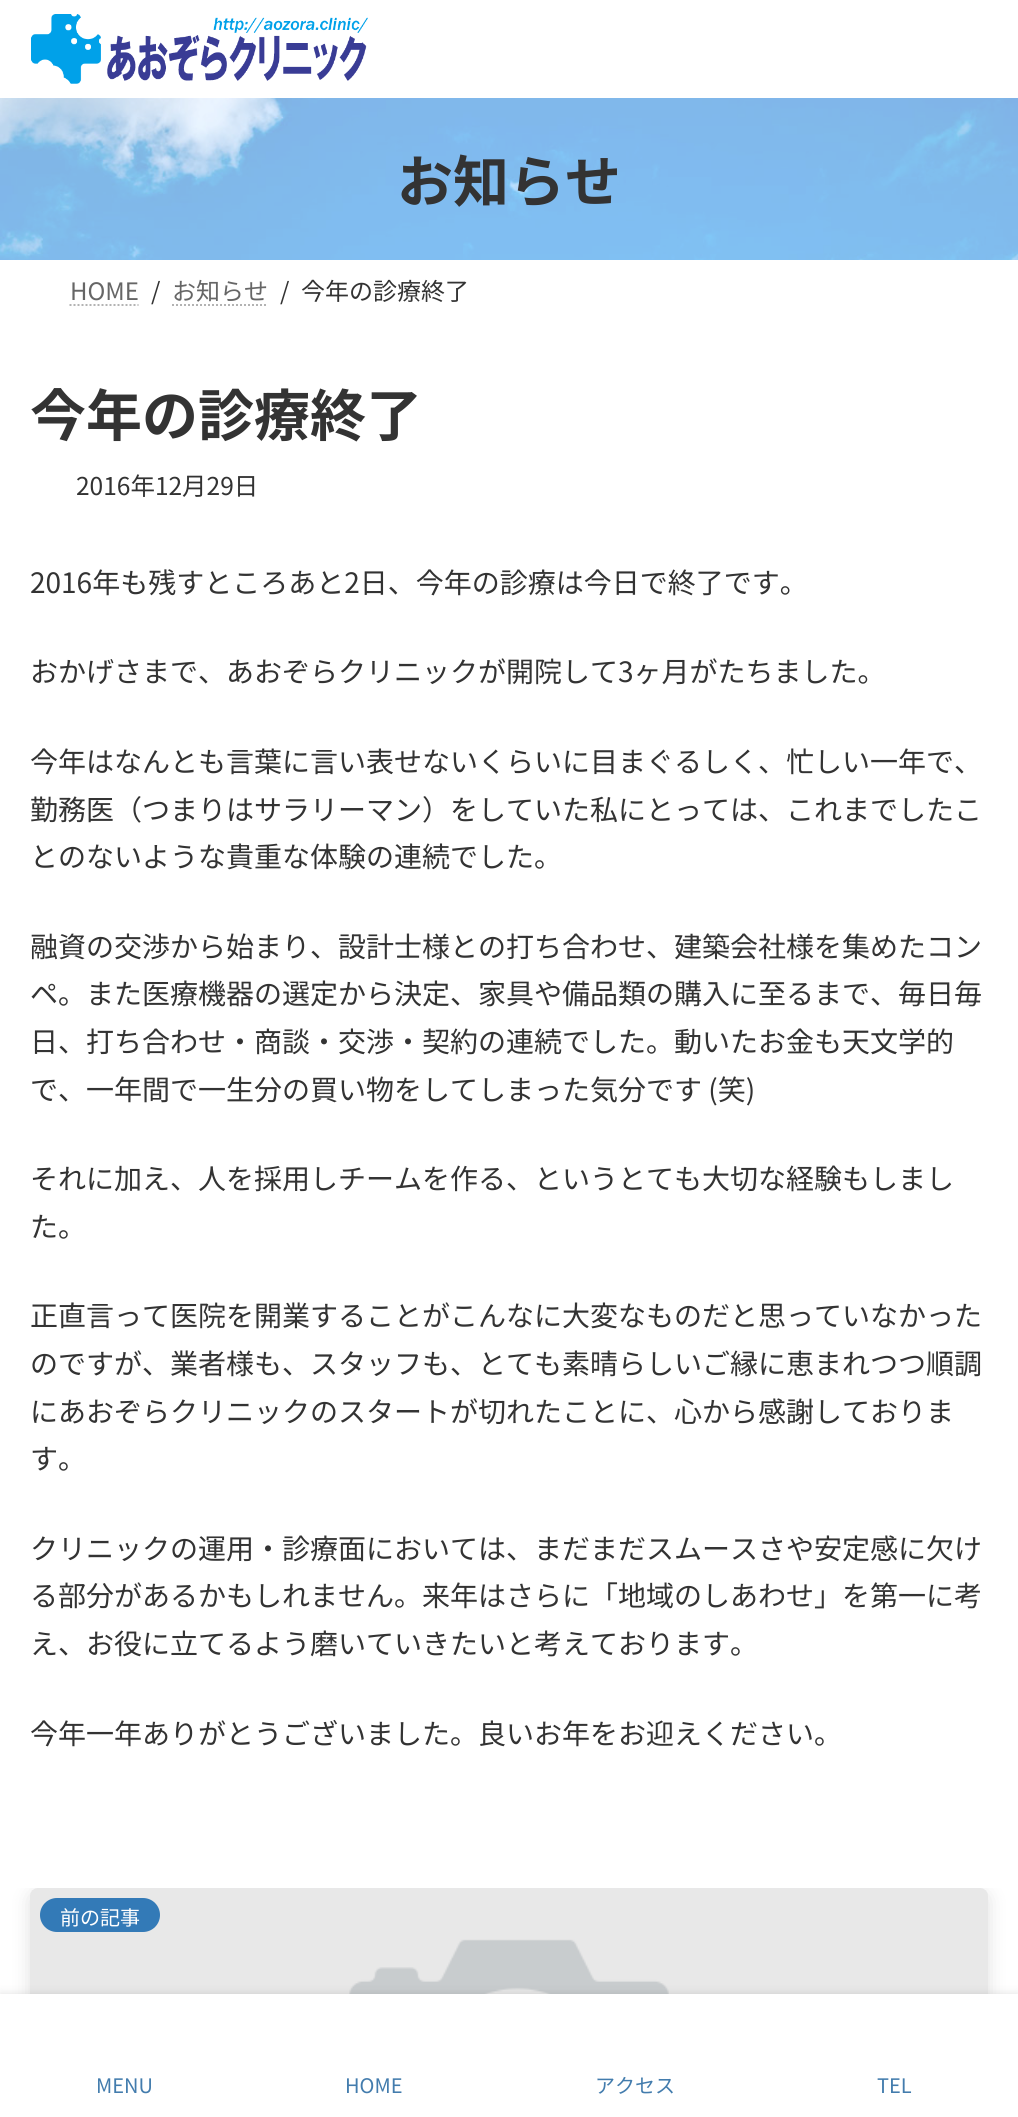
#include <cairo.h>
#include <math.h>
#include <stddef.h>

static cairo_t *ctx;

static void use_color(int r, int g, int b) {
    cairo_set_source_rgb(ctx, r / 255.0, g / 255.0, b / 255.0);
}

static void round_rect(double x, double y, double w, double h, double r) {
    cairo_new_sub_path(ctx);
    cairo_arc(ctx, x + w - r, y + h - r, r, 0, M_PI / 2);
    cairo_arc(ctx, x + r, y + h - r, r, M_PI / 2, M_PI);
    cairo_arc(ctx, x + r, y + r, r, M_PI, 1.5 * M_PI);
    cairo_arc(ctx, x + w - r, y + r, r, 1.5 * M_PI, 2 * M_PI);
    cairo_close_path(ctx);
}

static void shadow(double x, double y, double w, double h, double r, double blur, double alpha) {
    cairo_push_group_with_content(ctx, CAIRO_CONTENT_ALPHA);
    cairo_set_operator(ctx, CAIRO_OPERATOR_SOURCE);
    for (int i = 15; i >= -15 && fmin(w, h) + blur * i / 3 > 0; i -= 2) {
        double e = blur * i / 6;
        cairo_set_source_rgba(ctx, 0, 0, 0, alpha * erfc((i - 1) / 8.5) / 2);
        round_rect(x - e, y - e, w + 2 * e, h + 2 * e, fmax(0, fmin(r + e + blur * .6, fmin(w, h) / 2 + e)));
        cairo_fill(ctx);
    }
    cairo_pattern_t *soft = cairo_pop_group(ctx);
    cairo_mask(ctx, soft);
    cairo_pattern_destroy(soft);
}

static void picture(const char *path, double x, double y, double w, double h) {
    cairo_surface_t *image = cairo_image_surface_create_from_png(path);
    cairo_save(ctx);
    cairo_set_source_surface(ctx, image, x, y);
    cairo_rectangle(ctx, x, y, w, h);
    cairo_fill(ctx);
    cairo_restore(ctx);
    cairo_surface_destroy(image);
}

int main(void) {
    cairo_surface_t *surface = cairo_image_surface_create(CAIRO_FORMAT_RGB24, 1018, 2117);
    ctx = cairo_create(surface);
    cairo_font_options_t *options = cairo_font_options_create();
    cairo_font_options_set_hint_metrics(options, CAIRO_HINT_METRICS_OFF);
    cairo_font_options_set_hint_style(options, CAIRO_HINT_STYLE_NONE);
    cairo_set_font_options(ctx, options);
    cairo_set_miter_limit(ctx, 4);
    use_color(255, 255, 255);
    cairo_paint(ctx);
    picture("img1.png", 31, 14, 337, 70);
    picture("img2.png", 0, 98, 1018, 162);
    cairo_select_font_face(ctx, "Noto Sans JP", CAIRO_FONT_SLANT_NORMAL, CAIRO_FONT_WEIGHT_BOLD);
    cairo_set_font_size(ctx, 56);
    use_color(51, 51, 51);
    cairo_move_to(ctx, 397, 202);
    cairo_show_text(ctx, "お知らせ");
    cairo_select_font_face(ctx, "Noto Sans JP", CAIRO_FONT_SLANT_NORMAL, CAIRO_FONT_WEIGHT_NORMAL);
    cairo_set_font_size(ctx, 24);
    use_color(102, 102, 102);
    cairo_move_to(ctx, 70, 300);
    cairo_show_text(ctx, "HOME");
    cairo_new_path(ctx);
    cairo_move_to(ctx, 69.5, 305);
    cairo_line_to(ctx, 138.5, 305);
    use_color(179, 179, 179);
    cairo_set_dash(ctx, (double[]){2, 2}, 2, 0);
    cairo_stroke(ctx);
    use_color(51, 51, 51);
    cairo_move_to(ctx, 151, 300);
    cairo_show_text(ctx, "/");
    use_color(102, 102, 102);
    cairo_move_to(ctx, 172, 300);
    cairo_show_text(ctx, "お知らせ");
    cairo_new_path(ctx);
    cairo_move_to(ctx, 172, 305);
    cairo_line_to(ctx, 268, 305);
    use_color(179, 179, 179);
    cairo_stroke(ctx);
    use_color(51, 51, 51);
    cairo_move_to(ctx, 280, 300);
    cairo_show_text(ctx, "/");
    cairo_move_to(ctx, 301, 300);
    cairo_show_text(ctx, "今年の診療終了");
    cairo_select_font_face(ctx, "Noto Sans JP", CAIRO_FONT_SLANT_NORMAL, CAIRO_FONT_WEIGHT_BOLD);
    cairo_set_font_size(ctx, 56);
    cairo_move_to(ctx, 30, 436);
    cairo_show_text(ctx, "今年の診療終了");
    cairo_select_font_face(ctx, "Noto Sans JP", CAIRO_FONT_SLANT_NORMAL, CAIRO_FONT_WEIGHT_NORMAL);
    cairo_set_font_size(ctx, 24.5);
    cairo_move_to(ctx, 76, 495);
    cairo_show_text(ctx, "2016年12月29日");
    cairo_set_font_size(ctx, 28);
    cairo_move_to(ctx, 30, 593);
    cairo_show_text(ctx, "2016年も残すところあと2日、今年の診療は今日で終了です。");
    cairo_move_to(ctx, 30, 682);
    cairo_show_text(ctx, "おかげさまで、あおぞらクリニックが開院して3ヶ月がたちました。");
    cairo_move_to(ctx, 30, 772);
    cairo_show_text(ctx, "今年はなんとも言葉に言い表せないくらいに目まぐるしく、忙しい一年で、");
    cairo_move_to(ctx, 30, 820);
    cairo_show_text(ctx, "勤務医（つまりはサラリーマン）をしていた私にとっては、これまでしたこ");
    cairo_move_to(ctx, 30, 867);
    cairo_show_text(ctx, "とのないような貴重な体験の連続でした。");
    cairo_move_to(ctx, 30, 957);
    cairo_show_text(ctx, "融資の交渉から始まり、設計士様との打ち合わせ、建築会社様を集めたコン");
    cairo_move_to(ctx, 30, 1004);
    cairo_show_text(ctx, "ペ。また医療機器の選定から決定、家具や備品類の購入に至るまで、毎日毎");
    cairo_move_to(ctx, 30, 1052);
    cairo_show_text(ctx, "日、打ち合わせ・商談・交渉・契約の連続でした。動いたお金も天文学的");
    cairo_move_to(ctx, 30, 1100);
    cairo_show_text(ctx, "で、一年間で一生分の買い物をしてしまった気分です (笑)");
    cairo_move_to(ctx, 30, 1189);
    cairo_show_text(ctx, "それに加え、人を採用しチームを作る、というとても大切な経験もしまし");
    cairo_move_to(ctx, 30, 1237);
    cairo_show_text(ctx, "た。");
    cairo_move_to(ctx, 30, 1326);
    cairo_show_text(ctx, "正直言って医院を開業することがこんなに大変なものだと思っていなかった");
    cairo_move_to(ctx, 30, 1374);
    cairo_show_text(ctx, "のですが、業者様も、スタッフも、とても素晴らしいご縁に恵まれつつ順調");
    cairo_move_to(ctx, 30, 1422);
    cairo_show_text(ctx, "にあおぞらクリニックのスタートが切れたことに、心から感謝しておりま");
    cairo_move_to(ctx, 30, 1469);
    cairo_show_text(ctx, "す。");
    cairo_move_to(ctx, 30, 1559);
    cairo_show_text(ctx, "クリニックの運用・診療面においては、まだまだスムースさや安定感に欠け");
    cairo_move_to(ctx, 30, 1606);
    cairo_show_text(ctx, "る部分があるかもしれません。来年はさらに「地域のしあわせ」を第一に考");
    cairo_move_to(ctx, 30, 1654);
    cairo_show_text(ctx, "え、お役に立てるよう磨いていきたいと考えております。");
    cairo_move_to(ctx, 30, 1744);
    cairo_show_text(ctx, "今年一年ありがとうございました。良いお年をお迎えください。");
    cairo_save(ctx);
    cairo_rectangle(ctx, 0, 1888, 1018, 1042);
    cairo_clip(ctx);
    use_color(0, 0, 0);
    shadow(30, 1892, 958, 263, 8, 10, 0.12);
    cairo_restore(ctx);
    picture("img3.png", 30, 1888, 958, 106);
    use_color(51, 122, 183);
    round_rect(40, 1898, 120, 34, 17);
    cairo_fill(ctx);
    cairo_set_font_size(ctx, 20);
    use_color(255, 255, 255);
    cairo_move_to(ctx, 60, 1925);
    cairo_show_text(ctx, "前の記事");
    use_color(0, 0, 0);
    shadow(0, 1994, 1018, 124, 0, 5, 0.12);
    use_color(255, 255, 255);
    cairo_rectangle(ctx, 0, 1994, 1018, 123);
    cairo_fill(ctx);
    use_color(67, 124, 173);
    cairo_move_to(ctx, 96, 2093);
    cairo_show_text(ctx, "MENU");
    cairo_move_to(ctx, 345, 2093);
    cairo_show_text(ctx, "HOME");
    cairo_move_to(ctx, 595, 2093);
    cairo_show_text(ctx, "アクセス");
    cairo_move_to(ctx, 877, 2093);
    cairo_show_text(ctx, "TEL");
    cairo_surface_write_to_png(surface, "result.png");
    cairo_font_options_destroy(options);
    cairo_destroy(ctx);
    cairo_surface_destroy(surface);
    return 0;
}
